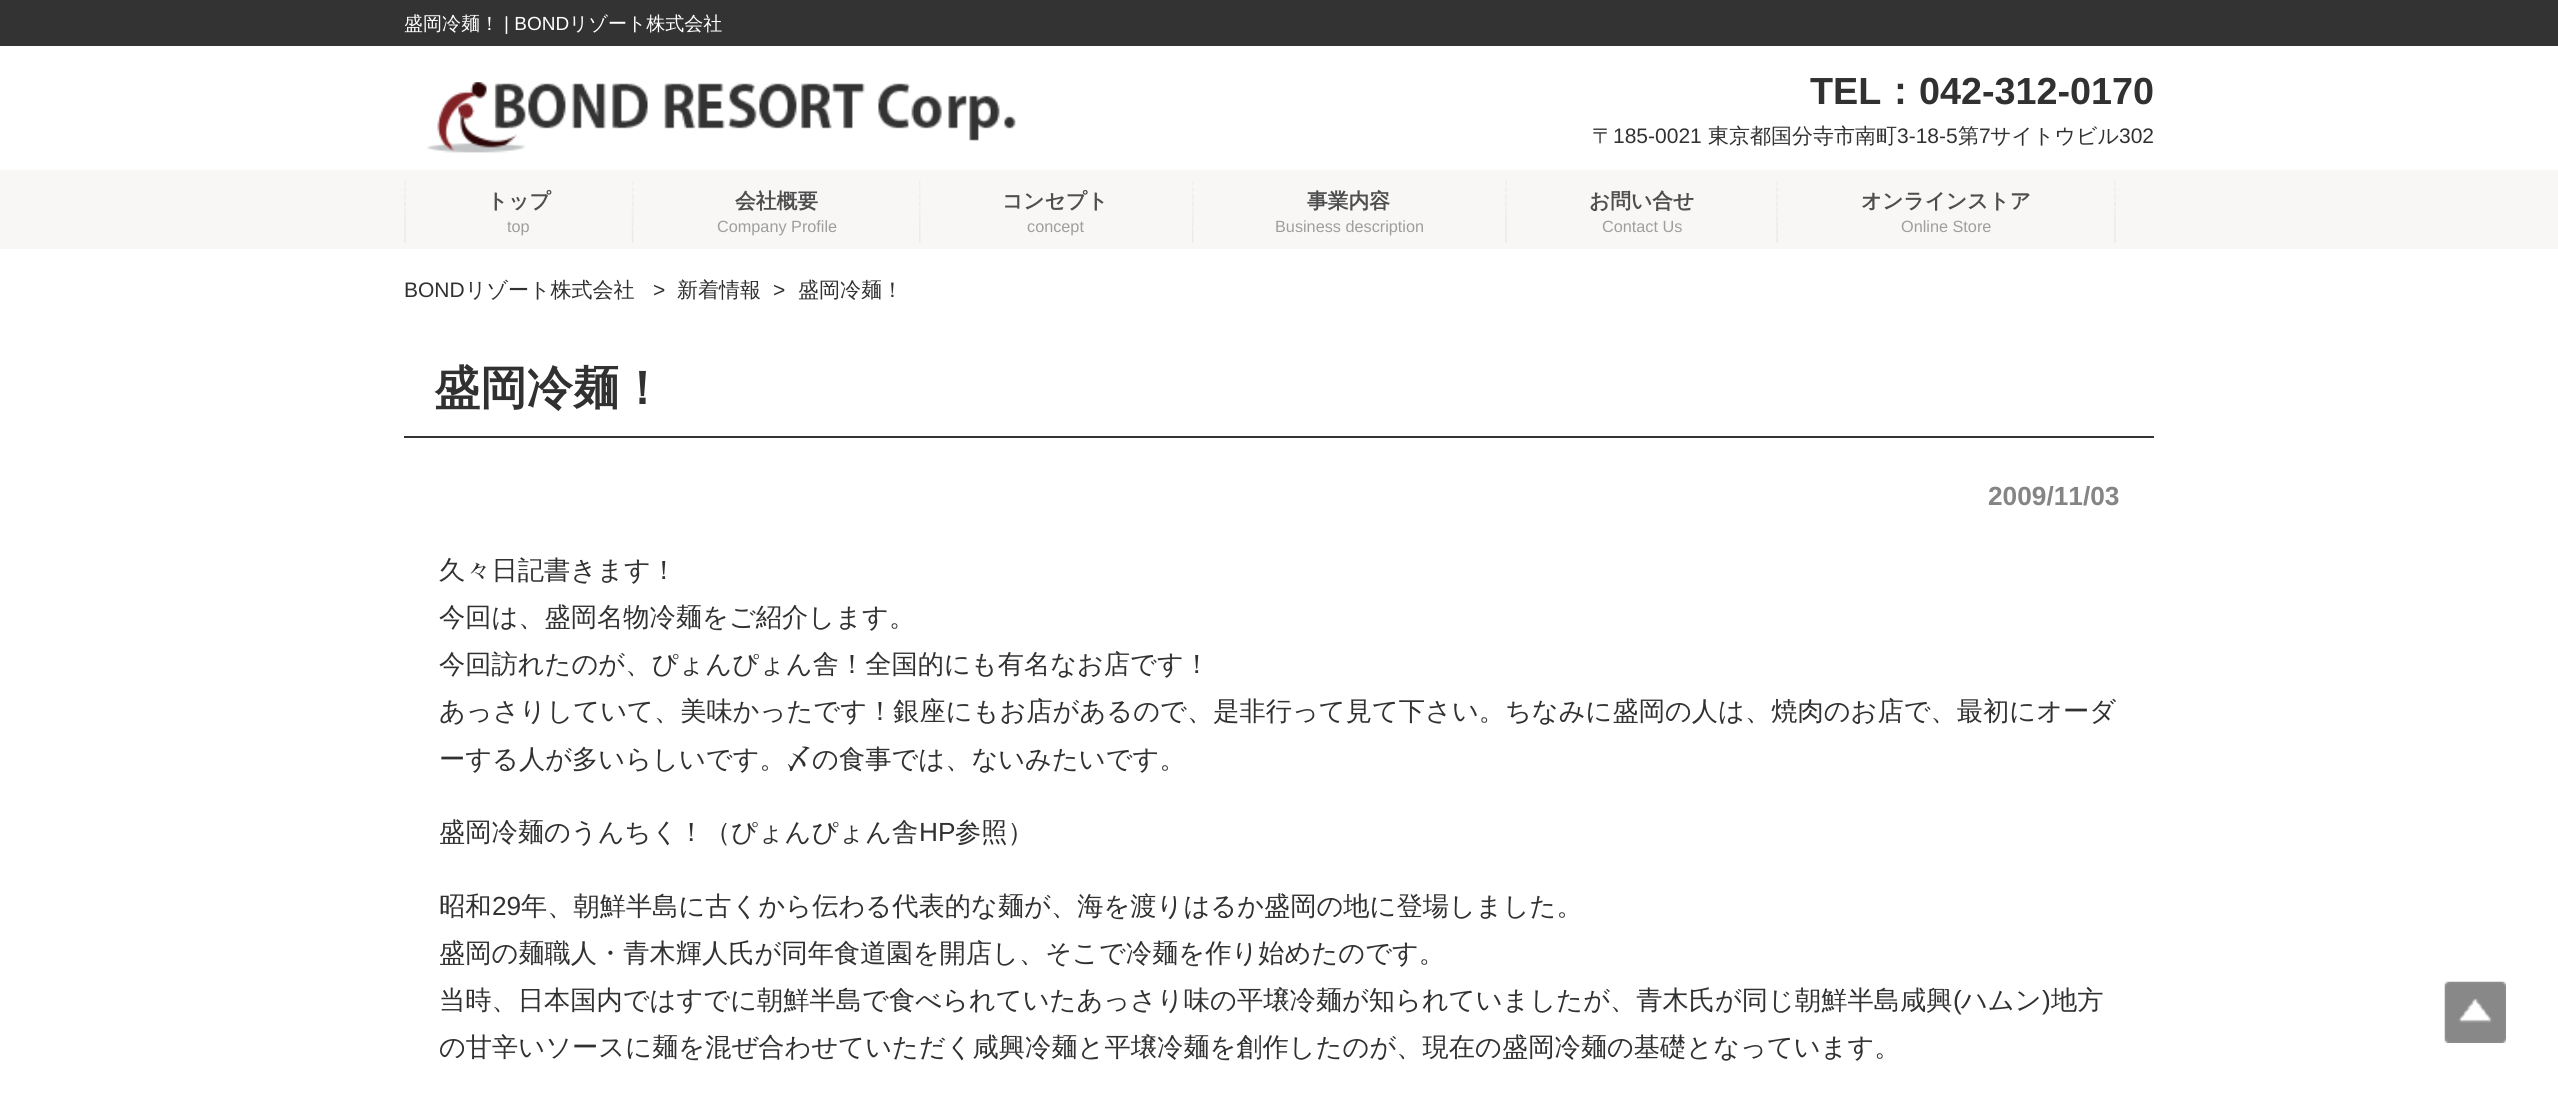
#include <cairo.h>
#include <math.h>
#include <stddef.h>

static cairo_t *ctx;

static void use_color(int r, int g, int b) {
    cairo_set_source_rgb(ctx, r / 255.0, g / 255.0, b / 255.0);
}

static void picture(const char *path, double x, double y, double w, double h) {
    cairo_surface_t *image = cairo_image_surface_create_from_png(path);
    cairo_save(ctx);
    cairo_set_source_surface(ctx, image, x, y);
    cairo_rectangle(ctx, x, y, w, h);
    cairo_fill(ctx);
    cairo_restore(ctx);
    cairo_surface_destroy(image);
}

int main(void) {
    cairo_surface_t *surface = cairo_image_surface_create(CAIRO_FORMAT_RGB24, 2558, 1094);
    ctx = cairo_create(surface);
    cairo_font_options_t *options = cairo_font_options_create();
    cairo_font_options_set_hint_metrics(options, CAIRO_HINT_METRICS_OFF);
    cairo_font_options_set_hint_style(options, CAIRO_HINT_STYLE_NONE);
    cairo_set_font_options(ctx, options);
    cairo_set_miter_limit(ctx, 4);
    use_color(255, 255, 255);
    cairo_paint(ctx);
    use_color(51, 51, 51);
    cairo_rectangle(ctx, 0, 0, 2558, 46);
    cairo_fill(ctx);
    cairo_select_font_face(ctx, "WenQuanYi Zen Hei Medium", CAIRO_FONT_SLANT_NORMAL, CAIRO_FONT_WEIGHT_NORMAL);
    cairo_set_font_size(ctx, 19);
    use_color(255, 255, 255);
    cairo_move_to(ctx, 404, 30);
    cairo_show_text(ctx, "盛岡冷麺！");
    cairo_select_font_face(ctx, "Liberation Sans", CAIRO_FONT_SLANT_NORMAL, CAIRO_FONT_WEIGHT_NORMAL);
    cairo_move_to(ctx, 504, 30);
    cairo_show_text(ctx, "| BOND");
    cairo_select_font_face(ctx, "WenQuanYi Zen Hei Medium", CAIRO_FONT_SLANT_NORMAL, CAIRO_FONT_WEIGHT_NORMAL);
    cairo_move_to(ctx, 569, 30);
    cairo_show_text(ctx, "リゾート株式会社");
    picture("img1.png", 427, 82, 589, 71);
    cairo_select_font_face(ctx, "Liberation Sans", CAIRO_FONT_SLANT_NORMAL, CAIRO_FONT_WEIGHT_BOLD);
    cairo_set_font_size(ctx, 37.75);
    use_color(49, 49, 49);
    cairo_move_to(ctx, 1810, 104);
    cairo_show_text(ctx, "TEL");
    cairo_select_font_face(ctx, "WenQuanYi Zen Hei", CAIRO_FONT_SLANT_NORMAL, CAIRO_FONT_WEIGHT_BOLD);
    cairo_move_to(ctx, 1881, 104);
    cairo_show_text(ctx, "：");
    cairo_select_font_face(ctx, "Liberation Sans", CAIRO_FONT_SLANT_NORMAL, CAIRO_FONT_WEIGHT_BOLD);
    cairo_move_to(ctx, 1919, 104);
    cairo_show_text(ctx, "042-312-0170");
    cairo_select_font_face(ctx, "WenQuanYi Zen Hei Medium", CAIRO_FONT_SLANT_NORMAL, CAIRO_FONT_WEIGHT_NORMAL);
    cairo_set_font_size(ctx, 21);
    cairo_move_to(ctx, 1592, 143);
    cairo_show_text(ctx, "〒");
    cairo_select_font_face(ctx, "Liberation Sans", CAIRO_FONT_SLANT_NORMAL, CAIRO_FONT_WEIGHT_NORMAL);
    cairo_move_to(ctx, 1613, 143);
    cairo_show_text(ctx, "185-0021");
    cairo_select_font_face(ctx, "WenQuanYi Zen Hei Medium", CAIRO_FONT_SLANT_NORMAL, CAIRO_FONT_WEIGHT_NORMAL);
    cairo_move_to(ctx, 1708, 143);
    cairo_show_text(ctx, "東京都国分寺市南町");
    cairo_select_font_face(ctx, "Liberation Sans", CAIRO_FONT_SLANT_NORMAL, CAIRO_FONT_WEIGHT_NORMAL);
    cairo_move_to(ctx, 1897, 143);
    cairo_show_text(ctx, "3-18-5");
    cairo_select_font_face(ctx, "WenQuanYi Zen Hei Medium", CAIRO_FONT_SLANT_NORMAL, CAIRO_FONT_WEIGHT_NORMAL);
    cairo_move_to(ctx, 1958, 143);
    cairo_show_text(ctx, "第");
    cairo_select_font_face(ctx, "Liberation Sans", CAIRO_FONT_SLANT_NORMAL, CAIRO_FONT_WEIGHT_NORMAL);
    cairo_move_to(ctx, 1979, 143);
    cairo_show_text(ctx, "7");
    cairo_select_font_face(ctx, "WenQuanYi Zen Hei Medium", CAIRO_FONT_SLANT_NORMAL, CAIRO_FONT_WEIGHT_NORMAL);
    cairo_move_to(ctx, 1990, 143);
    cairo_show_text(ctx, "サイトウビル");
    cairo_select_font_face(ctx, "Liberation Sans", CAIRO_FONT_SLANT_NORMAL, CAIRO_FONT_WEIGHT_NORMAL);
    cairo_move_to(ctx, 2119, 143);
    cairo_show_text(ctx, "302");
    use_color(248, 247, 246);
    cairo_rectangle(ctx, 0, 170, 2558, 79);
    cairo_fill(ctx);
    picture("img2.png", 404, 181, 230, 62);
    cairo_select_font_face(ctx, "WenQuanYi Zen Hei", CAIRO_FONT_SLANT_NORMAL, CAIRO_FONT_WEIGHT_BOLD);
    cairo_set_font_size(ctx, 20.75);
    use_color(78, 78, 78);
    cairo_move_to(ctx, 487, 208);
    cairo_show_text(ctx, "トップ");
    cairo_select_font_face(ctx, "Liberation Sans", CAIRO_FONT_SLANT_NORMAL, CAIRO_FONT_WEIGHT_NORMAL);
    cairo_set_font_size(ctx, 16.25);
    use_color(158, 158, 158);
    cairo_move_to(ctx, 507, 232);
    cairo_show_text(ctx, "top");
    picture("img3.png", 919, 181, 2, 62);
    cairo_select_font_face(ctx, "WenQuanYi Zen Hei", CAIRO_FONT_SLANT_NORMAL, CAIRO_FONT_WEIGHT_BOLD);
    cairo_set_font_size(ctx, 20.75);
    use_color(78, 78, 78);
    cairo_move_to(ctx, 735, 208);
    cairo_show_text(ctx, "会社概要");
    cairo_select_font_face(ctx, "Liberation Sans", CAIRO_FONT_SLANT_NORMAL, CAIRO_FONT_WEIGHT_NORMAL);
    cairo_set_font_size(ctx, 16.25);
    use_color(158, 158, 158);
    cairo_move_to(ctx, 717, 232);
    cairo_show_text(ctx, "Company Profile");
    picture("img3.png", 1192, 181, 2, 62);
    cairo_select_font_face(ctx, "WenQuanYi Zen Hei", CAIRO_FONT_SLANT_NORMAL, CAIRO_FONT_WEIGHT_BOLD);
    cairo_set_font_size(ctx, 20.75);
    use_color(78, 78, 78);
    cairo_move_to(ctx, 1002, 208);
    cairo_show_text(ctx, "コンセプト");
    cairo_select_font_face(ctx, "Liberation Sans", CAIRO_FONT_SLANT_NORMAL, CAIRO_FONT_WEIGHT_NORMAL);
    cairo_set_font_size(ctx, 16.25);
    use_color(158, 158, 158);
    cairo_move_to(ctx, 1027, 232);
    cairo_show_text(ctx, "concept");
    picture("img4.png", 1505, 181, 2, 62);
    cairo_select_font_face(ctx, "WenQuanYi Zen Hei", CAIRO_FONT_SLANT_NORMAL, CAIRO_FONT_WEIGHT_BOLD);
    cairo_set_font_size(ctx, 20.75);
    use_color(78, 78, 78);
    cairo_move_to(ctx, 1307, 208);
    cairo_show_text(ctx, "事業内容");
    cairo_select_font_face(ctx, "Liberation Sans", CAIRO_FONT_SLANT_NORMAL, CAIRO_FONT_WEIGHT_NORMAL);
    cairo_set_font_size(ctx, 16.25);
    use_color(158, 158, 158);
    cairo_move_to(ctx, 1275, 232);
    cairo_show_text(ctx, "Business description");
    picture("img5.png", 1776, 181, 2, 62);
    cairo_select_font_face(ctx, "WenQuanYi Zen Hei", CAIRO_FONT_SLANT_NORMAL, CAIRO_FONT_WEIGHT_BOLD);
    cairo_set_font_size(ctx, 20.75);
    use_color(78, 78, 78);
    cairo_move_to(ctx, 1589, 208);
    cairo_show_text(ctx, "お問い合せ");
    cairo_select_font_face(ctx, "Liberation Sans", CAIRO_FONT_SLANT_NORMAL, CAIRO_FONT_WEIGHT_NORMAL);
    cairo_set_font_size(ctx, 16.25);
    use_color(158, 158, 158);
    cairo_move_to(ctx, 1602, 232);
    cairo_show_text(ctx, "Contact Us");
    picture("img4.png", 2114, 181, 2, 62);
    cairo_select_font_face(ctx, "WenQuanYi Zen Hei", CAIRO_FONT_SLANT_NORMAL, CAIRO_FONT_WEIGHT_BOLD);
    cairo_set_font_size(ctx, 20.75);
    use_color(78, 78, 78);
    cairo_move_to(ctx, 1861, 208);
    cairo_show_text(ctx, "オンラインストア");
    cairo_select_font_face(ctx, "Liberation Sans", CAIRO_FONT_SLANT_NORMAL, CAIRO_FONT_WEIGHT_NORMAL);
    cairo_set_font_size(ctx, 16.25);
    use_color(158, 158, 158);
    cairo_move_to(ctx, 1901, 232);
    cairo_show_text(ctx, "Online Store");
    cairo_set_font_size(ctx, 21);
    use_color(49, 49, 49);
    cairo_move_to(ctx, 404, 297);
    cairo_show_text(ctx, "BOND");
    cairo_select_font_face(ctx, "WenQuanYi Zen Hei Medium", CAIRO_FONT_SLANT_NORMAL, CAIRO_FONT_WEIGHT_NORMAL);
    cairo_move_to(ctx, 465, 297);
    cairo_show_text(ctx, "リゾート株式会社");
    cairo_select_font_face(ctx, "Liberation Sans", CAIRO_FONT_SLANT_NORMAL, CAIRO_FONT_WEIGHT_NORMAL);
    cairo_move_to(ctx, 653, 297);
    cairo_show_text(ctx, ">");
    cairo_select_font_face(ctx, "WenQuanYi Zen Hei Medium", CAIRO_FONT_SLANT_NORMAL, CAIRO_FONT_WEIGHT_NORMAL);
    cairo_move_to(ctx, 677, 297);
    cairo_show_text(ctx, "新着情報");
    cairo_select_font_face(ctx, "Liberation Sans", CAIRO_FONT_SLANT_NORMAL, CAIRO_FONT_WEIGHT_NORMAL);
    cairo_move_to(ctx, 773, 297);
    cairo_show_text(ctx, ">");
    cairo_select_font_face(ctx, "WenQuanYi Zen Hei Medium", CAIRO_FONT_SLANT_NORMAL, CAIRO_FONT_WEIGHT_NORMAL);
    cairo_move_to(ctx, 798, 297);
    cairo_show_text(ctx, "盛岡冷麺！");
    use_color(51, 51, 51);
    cairo_rectangle(ctx, 404, 436, 1750, 2);
    cairo_fill(ctx);
    cairo_select_font_face(ctx, "WenQuanYi Zen Hei", CAIRO_FONT_SLANT_NORMAL, CAIRO_FONT_WEIGHT_BOLD);
    cairo_set_font_size(ctx, 46.25);
    use_color(49, 49, 49);
    cairo_move_to(ctx, 434, 404);
    cairo_show_text(ctx, "盛岡冷麺！");
    cairo_select_font_face(ctx, "Liberation Sans", CAIRO_FONT_SLANT_NORMAL, CAIRO_FONT_WEIGHT_BOLD);
    cairo_set_font_size(ctx, 26.25);
    use_color(133, 133, 133);
    cairo_move_to(ctx, 1988, 505);
    cairo_show_text(ctx, "2009/11/03");
    cairo_select_font_face(ctx, "WenQuanYi Zen Hei Medium", CAIRO_FONT_SLANT_NORMAL, CAIRO_FONT_WEIGHT_NORMAL);
    use_color(49, 49, 49);
    cairo_move_to(ctx, 439, 579);
    cairo_show_text(ctx, "久々日記書きます！");
    cairo_move_to(ctx, 439, 626);
    cairo_show_text(ctx, "今回は、盛岡名物冷麺をご紹介します。");
    cairo_move_to(ctx, 439, 673);
    cairo_show_text(ctx, "今回訪れたのが、ぴょんぴょん舎！全国的にも有名なお店です！");
    cairo_move_to(ctx, 439, 720);
    cairo_show_text(ctx, "あっさりしていて、美味かったです！銀座にもお店があるので、是非行って見て下さい。ちなみに盛岡の人は、焼肉のお店で、最初にオーダ");
    cairo_move_to(ctx, 439, 768);
    cairo_show_text(ctx, "ーする人が多いらしいです。〆の食事では、ないみたいです。");
    cairo_move_to(ctx, 439, 841);
    cairo_show_text(ctx, "盛岡冷麺のうんちく！（ぴょんぴょん舎");
    cairo_select_font_face(ctx, "Liberation Sans", CAIRO_FONT_SLANT_NORMAL, CAIRO_FONT_WEIGHT_NORMAL);
    cairo_move_to(ctx, 919, 841);
    cairo_show_text(ctx, "HP");
    cairo_select_font_face(ctx, "WenQuanYi Zen Hei Medium", CAIRO_FONT_SLANT_NORMAL, CAIRO_FONT_WEIGHT_NORMAL);
    cairo_move_to(ctx, 955, 841);
    cairo_show_text(ctx, "参照）");
    cairo_move_to(ctx, 439, 915);
    cairo_show_text(ctx, "昭和");
    cairo_select_font_face(ctx, "Liberation Sans", CAIRO_FONT_SLANT_NORMAL, CAIRO_FONT_WEIGHT_NORMAL);
    cairo_move_to(ctx, 492, 915);
    cairo_show_text(ctx, "29");
    cairo_select_font_face(ctx, "WenQuanYi Zen Hei Medium", CAIRO_FONT_SLANT_NORMAL, CAIRO_FONT_WEIGHT_NORMAL);
    cairo_move_to(ctx, 521, 915);
    cairo_show_text(ctx, "年、朝鮮半島に古くから伝わる代表的な麺が、海を渡りはるか盛岡の地に登場しました。");
    cairo_move_to(ctx, 439, 962);
    cairo_show_text(ctx, "盛岡の麺職人・青木輝人氏が同年食道園を開店し、そこで冷麺を作り始めたのです。");
    cairo_move_to(ctx, 439, 1009);
    cairo_show_text(ctx, "当時、日本国内ではすでに朝鮮半島で食べられていたあっさり味の平壌冷麺が知られていましたが、青木氏が同じ朝鮮半島咸興");
    cairo_select_font_face(ctx, "Liberation Sans", CAIRO_FONT_SLANT_NORMAL, CAIRO_FONT_WEIGHT_NORMAL);
    cairo_move_to(ctx, 1953, 1009);
    cairo_show_text(ctx, "(");
    cairo_select_font_face(ctx, "WenQuanYi Zen Hei Medium", CAIRO_FONT_SLANT_NORMAL, CAIRO_FONT_WEIGHT_NORMAL);
    cairo_move_to(ctx, 1961, 1009);
    cairo_show_text(ctx, "ハムン");
    cairo_select_font_face(ctx, "Liberation Sans", CAIRO_FONT_SLANT_NORMAL, CAIRO_FONT_WEIGHT_NORMAL);
    cairo_move_to(ctx, 2042, 1009);
    cairo_show_text(ctx, ")");
    cairo_select_font_face(ctx, "WenQuanYi Zen Hei Medium", CAIRO_FONT_SLANT_NORMAL, CAIRO_FONT_WEIGHT_NORMAL);
    cairo_move_to(ctx, 2051, 1009);
    cairo_show_text(ctx, "地方");
    cairo_move_to(ctx, 439, 1056);
    cairo_show_text(ctx, "の甘辛いソースに麺を混ぜ合わせていただく咸興冷麺と平壌冷麺を創作したのが、現在の盛岡冷麺の基礎となっています。");
    picture("img6.png", 2444, 981, 62, 62);
    cairo_surface_write_to_png(surface, "result.png");
    cairo_font_options_destroy(options);
    cairo_destroy(ctx);
    cairo_surface_destroy(surface);
    return 0;
}
